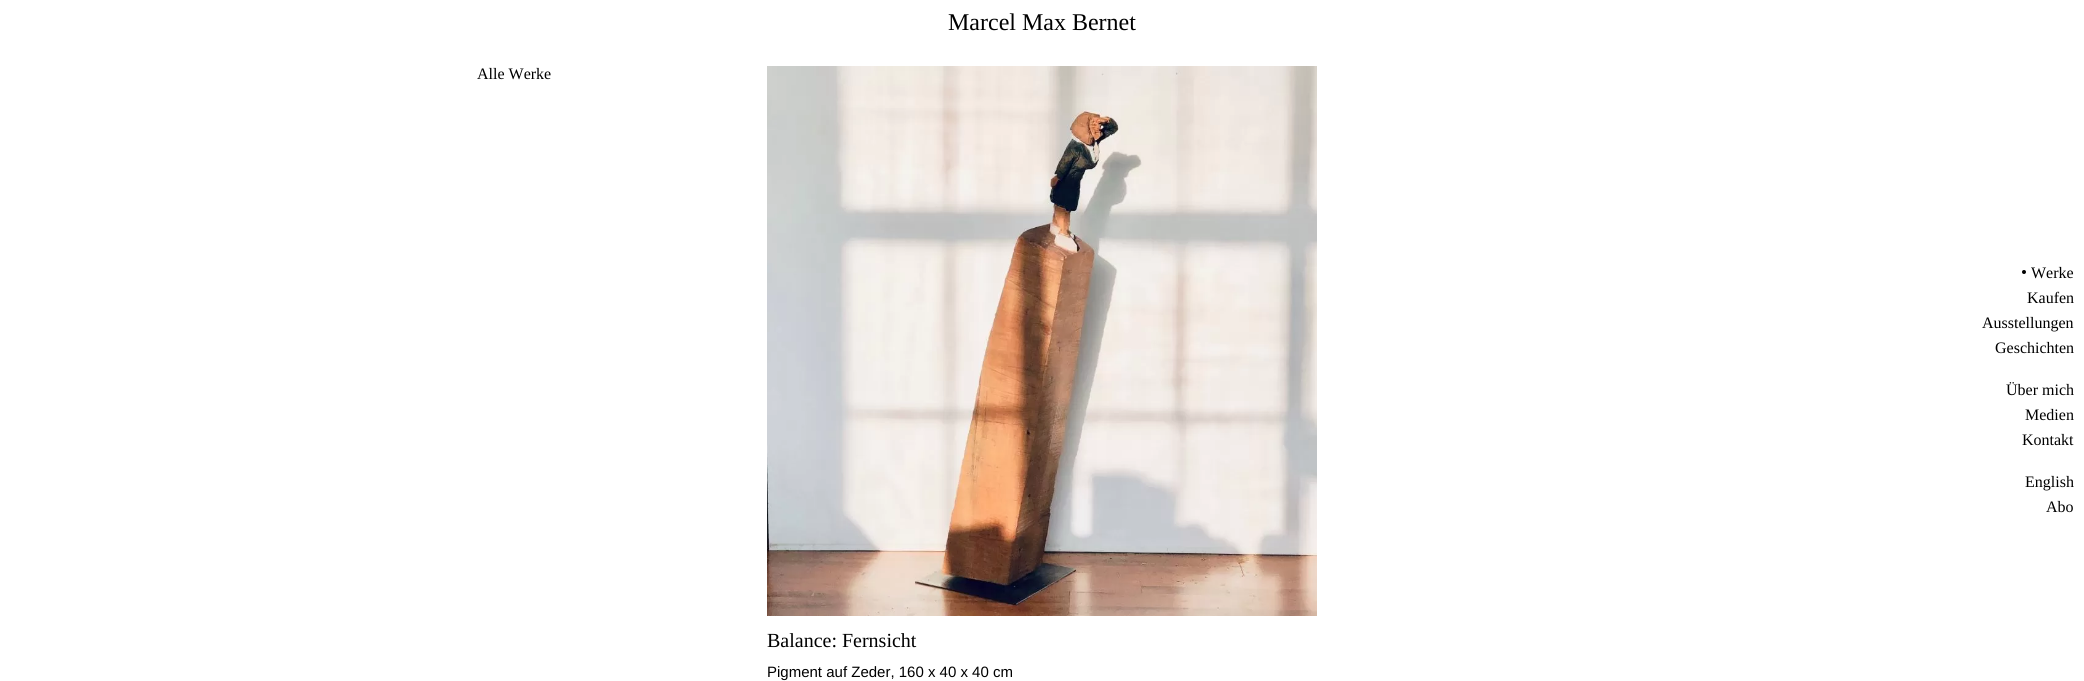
#include <cairo.h>
#include <math.h>
#include <stddef.h>

static cairo_t *ctx;

static void use_color(int r, int g, int b) {
    cairo_set_source_rgb(ctx, r / 255.0, g / 255.0, b / 255.0);
}

static void picture(const char *path, double x, double y, double w, double h) {
    cairo_surface_t *image = cairo_image_surface_create_from_png(path);
    cairo_save(ctx);
    cairo_set_source_surface(ctx, image, x, y);
    cairo_rectangle(ctx, x, y, w, h);
    cairo_fill(ctx);
    cairo_restore(ctx);
    cairo_surface_destroy(image);
}

int main(void) {
    cairo_surface_t *surface = cairo_image_surface_create(CAIRO_FORMAT_RGB24, 2084, 681);
    ctx = cairo_create(surface);
    cairo_font_options_t *options = cairo_font_options_create();
    cairo_font_options_set_hint_metrics(options, CAIRO_HINT_METRICS_OFF);
    cairo_font_options_set_hint_style(options, CAIRO_HINT_STYLE_NONE);
    cairo_set_font_options(ctx, options);
    cairo_set_miter_limit(ctx, 4);
    use_color(255, 255, 255);
    cairo_paint(ctx);
    cairo_select_font_face(ctx, "Liberation Serif", CAIRO_FONT_SLANT_NORMAL, CAIRO_FONT_WEIGHT_NORMAL);
    cairo_set_font_size(ctx, 16);
    use_color(0, 0, 0);
    cairo_move_to(ctx, 477, 79);
    cairo_show_text(ctx, "Alle Werke");
    picture("img1.png", 767, 66, 550, 550);
    cairo_set_font_size(ctx, 20);
    cairo_move_to(ctx, 767, 647);
    cairo_show_text(ctx, "Balance: Fernsicht");
    cairo_select_font_face(ctx, "Liberation Sans", CAIRO_FONT_SLANT_NORMAL, CAIRO_FONT_WEIGHT_NORMAL);
    cairo_set_font_size(ctx, 15);
    cairo_move_to(ctx, 767, 677);
    cairo_show_text(ctx, "Pigment auf Zeder, 160 x 40 x 40 cm");
    cairo_select_font_face(ctx, "Liberation Serif", CAIRO_FONT_SLANT_NORMAL, CAIRO_FONT_WEIGHT_NORMAL);
    cairo_set_font_size(ctx, 24);
    cairo_move_to(ctx, 948, 30);
    cairo_show_text(ctx, "Marcel Max Bernet");
    cairo_new_path(ctx);
    cairo_arc(ctx, 2024, 272, 2, 0, 2 * M_PI);
    cairo_fill(ctx);
    cairo_set_font_size(ctx, 16);
    cairo_move_to(ctx, 2031, 278);
    cairo_show_text(ctx, "Werke");
    cairo_move_to(ctx, 2027, 303);
    cairo_show_text(ctx, "Kaufen");
    cairo_move_to(ctx, 1982, 328);
    cairo_show_text(ctx, "Ausstellungen");
    cairo_move_to(ctx, 1995, 353);
    cairo_show_text(ctx, "Geschichten");
    cairo_move_to(ctx, 2006, 395);
    cairo_show_text(ctx, "Über mich");
    cairo_move_to(ctx, 2025, 420);
    cairo_show_text(ctx, "Medien");
    cairo_move_to(ctx, 2022, 445);
    cairo_show_text(ctx, "Kontakt");
    cairo_move_to(ctx, 2025, 487);
    cairo_show_text(ctx, "English");
    cairo_move_to(ctx, 2046, 512);
    cairo_show_text(ctx, "Abo");
    cairo_surface_write_to_png(surface, "result.png");
    cairo_font_options_destroy(options);
    cairo_destroy(ctx);
    cairo_surface_destroy(surface);
    return 0;
}
